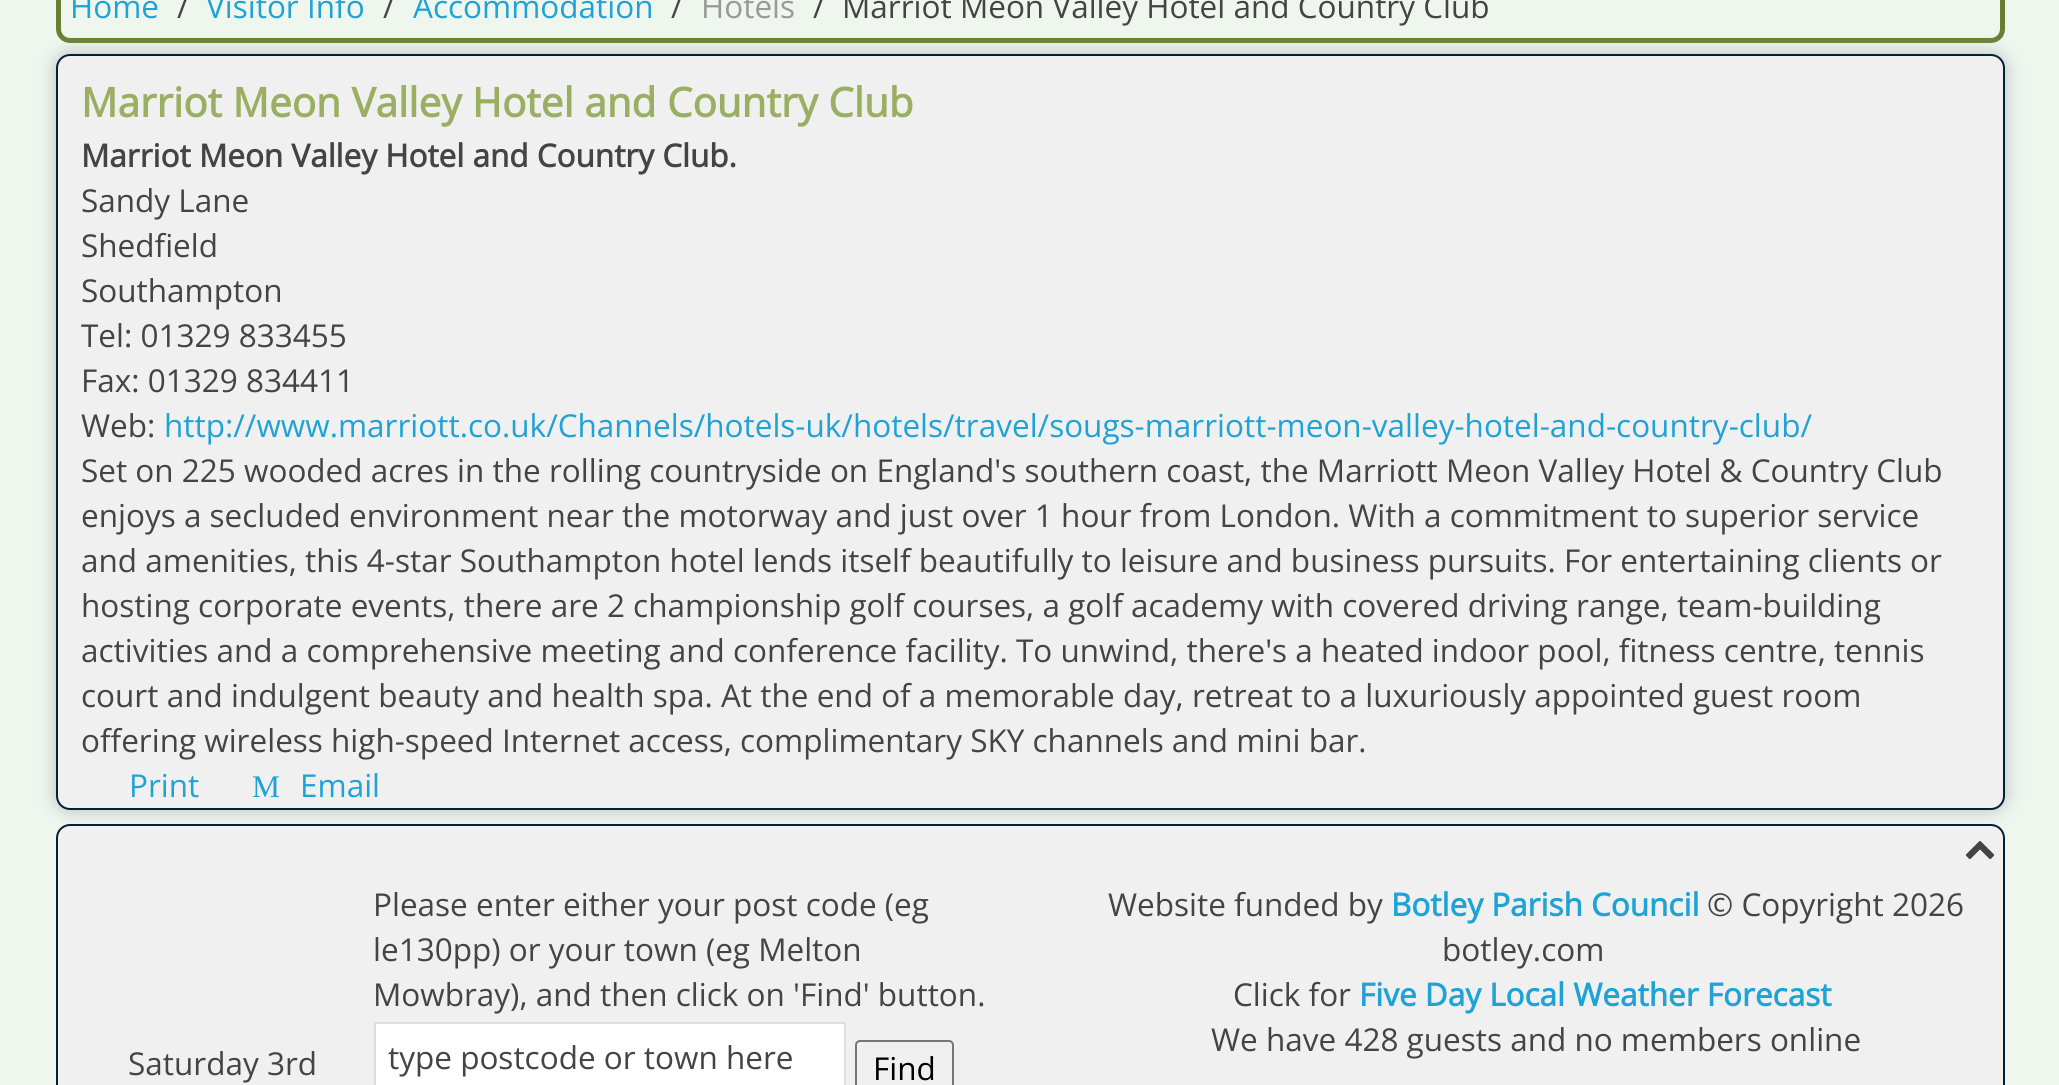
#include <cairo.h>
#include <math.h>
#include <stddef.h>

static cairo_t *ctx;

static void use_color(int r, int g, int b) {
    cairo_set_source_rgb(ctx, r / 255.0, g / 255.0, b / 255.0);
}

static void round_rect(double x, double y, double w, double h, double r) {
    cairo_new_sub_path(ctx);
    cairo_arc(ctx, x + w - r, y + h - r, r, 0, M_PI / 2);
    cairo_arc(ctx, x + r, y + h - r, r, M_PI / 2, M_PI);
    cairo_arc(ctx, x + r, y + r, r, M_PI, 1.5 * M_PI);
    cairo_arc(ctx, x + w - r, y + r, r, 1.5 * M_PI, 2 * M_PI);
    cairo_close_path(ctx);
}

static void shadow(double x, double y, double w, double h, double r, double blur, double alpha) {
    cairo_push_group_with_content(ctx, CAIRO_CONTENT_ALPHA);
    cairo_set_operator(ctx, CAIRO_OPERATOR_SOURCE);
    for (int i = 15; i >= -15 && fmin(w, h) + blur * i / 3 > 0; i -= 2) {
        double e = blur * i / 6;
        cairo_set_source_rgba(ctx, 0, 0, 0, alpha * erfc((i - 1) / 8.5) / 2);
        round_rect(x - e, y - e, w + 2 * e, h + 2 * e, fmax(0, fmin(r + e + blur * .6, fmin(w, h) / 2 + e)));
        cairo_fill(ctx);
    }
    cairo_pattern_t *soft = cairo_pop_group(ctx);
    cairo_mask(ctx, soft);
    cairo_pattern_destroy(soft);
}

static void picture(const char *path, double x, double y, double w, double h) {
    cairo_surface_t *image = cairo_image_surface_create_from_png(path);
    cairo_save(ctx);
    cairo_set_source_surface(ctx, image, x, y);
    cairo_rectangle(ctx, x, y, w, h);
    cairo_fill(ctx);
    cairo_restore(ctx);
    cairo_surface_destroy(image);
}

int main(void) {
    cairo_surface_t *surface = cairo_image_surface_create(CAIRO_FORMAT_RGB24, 2059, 1085);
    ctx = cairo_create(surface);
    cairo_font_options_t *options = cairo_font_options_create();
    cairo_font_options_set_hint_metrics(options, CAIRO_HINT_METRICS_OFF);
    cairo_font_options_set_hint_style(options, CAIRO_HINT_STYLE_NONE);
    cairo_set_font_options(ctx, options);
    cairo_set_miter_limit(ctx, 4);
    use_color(238, 246, 238);
    cairo_paint(ctx);
    round_rect(58.5, -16.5, 1944, 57, 11.5);
    use_color(106, 126, 49);
    cairo_set_line_width(ctx, 5);
    cairo_stroke(ctx);
    cairo_select_font_face(ctx, "Open Sans", CAIRO_FONT_SLANT_NORMAL, CAIRO_FONT_WEIGHT_NORMAL);
    cairo_set_font_size(ctx, 31.5);
    use_color(31, 162, 214);
    cairo_move_to(ctx, 70, 18);
    cairo_show_text(ctx, "Home");
    use_color(68, 68, 68);
    cairo_move_to(ctx, 177, 18);
    cairo_show_text(ctx, "/");
    use_color(31, 162, 214);
    cairo_move_to(ctx, 206, 18);
    cairo_show_text(ctx, "Visitor Info");
    use_color(68, 68, 68);
    cairo_move_to(ctx, 383, 18);
    cairo_show_text(ctx, "/");
    use_color(31, 162, 214);
    cairo_move_to(ctx, 413, 18);
    cairo_show_text(ctx, "Accommodation");
    use_color(68, 68, 68);
    cairo_move_to(ctx, 671, 18);
    cairo_show_text(ctx, "/");
    use_color(153, 153, 153);
    cairo_move_to(ctx, 701, 18);
    cairo_show_text(ctx, "Hotels");
    use_color(68, 68, 68);
    cairo_move_to(ctx, 813, 18);
    cairo_show_text(ctx, "/");
    cairo_move_to(ctx, 842, 18);
    cairo_show_text(ctx, "Marriot Meon Valley Hotel and Country Club");
    use_color(189, 189, 189);
    shadow(56, 54, 1949, 756, 14, 9, 1);
    use_color(240, 240, 240);
    round_rect(57, 55, 1947, 754, 13);
    cairo_fill_preserve(ctx);
    use_color(0, 34, 50);
    cairo_set_line_width(ctx, 2);
    cairo_stroke(ctx);
    cairo_select_font_face(ctx, "Open Sans", CAIRO_FONT_SLANT_NORMAL, CAIRO_FONT_WEIGHT_BOLD);
    cairo_set_font_size(ctx, 40.5);
    use_color(154, 175, 98);
    cairo_move_to(ctx, 81, 117);
    cairo_show_text(ctx, "Marriot Meon Valley Hotel and Country Club");
    cairo_set_font_size(ctx, 31.5);
    use_color(68, 68, 68);
    cairo_move_to(ctx, 81, 167);
    cairo_show_text(ctx, "Marriot Meon Valley Hotel and Country Club.");
    cairo_select_font_face(ctx, "Open Sans", CAIRO_FONT_SLANT_NORMAL, CAIRO_FONT_WEIGHT_NORMAL);
    cairo_move_to(ctx, 81, 212);
    cairo_show_text(ctx, "Sandy Lane");
    cairo_move_to(ctx, 81, 257);
    cairo_show_text(ctx, "Shedfield");
    cairo_move_to(ctx, 81, 302);
    cairo_show_text(ctx, "Southampton");
    cairo_move_to(ctx, 81, 347);
    cairo_show_text(ctx, "Tel: 01329 833455");
    cairo_move_to(ctx, 81, 392);
    cairo_show_text(ctx, "Fax: 01329 834411");
    cairo_move_to(ctx, 81, 437);
    cairo_show_text(ctx, "Web:");
    use_color(31, 162, 214);
    cairo_move_to(ctx, 164, 437);
    cairo_show_text(ctx, "http://www.marriott.co.uk/Channels/hotels-uk/hotels/travel/sougs-marriott-meon-valley-hotel-and-country-club/");
    use_color(68, 68, 68);
    cairo_move_to(ctx, 81, 482);
    cairo_show_text(ctx, "Set on 225 wooded acres in the rolling countryside on England's southern coast, the Marriott Meon Valley Hotel & Country Club");
    cairo_move_to(ctx, 81, 527);
    cairo_show_text(ctx, "enjoys a secluded environment near the motorway and just over 1 hour from London. With a commitment to superior service");
    cairo_move_to(ctx, 81, 572);
    cairo_show_text(ctx, "and amenities, this 4-star Southampton hotel lends itself beautifully to leisure and business pursuits. For entertaining clients or");
    cairo_move_to(ctx, 81, 617);
    cairo_show_text(ctx, "hosting corporate events, there are 2 championship golf courses, a golf academy with covered driving range, team-building");
    cairo_move_to(ctx, 81, 662);
    cairo_show_text(ctx, "activities and a comprehensive meeting and conference facility. To unwind, there's a heated indoor pool, fitness centre, tennis");
    cairo_move_to(ctx, 81, 707);
    cairo_show_text(ctx, "court and indulgent beauty and health spa. At the end of a memorable day, retreat to a luxuriously appointed guest room");
    cairo_move_to(ctx, 81, 752);
    cairo_show_text(ctx, "offering wireless high-speed Internet access, complimentary SKY channels and mini bar.");
    use_color(31, 162, 214);
    cairo_move_to(ctx, 129, 797);
    cairo_show_text(ctx, "Print");
    cairo_select_font_face(ctx, "Liberation Serif", CAIRO_FONT_SLANT_NORMAL, CAIRO_FONT_WEIGHT_NORMAL);
    cairo_move_to(ctx, 252, 797);
    cairo_show_text(ctx, "M");
    cairo_select_font_face(ctx, "Open Sans", CAIRO_FONT_SLANT_NORMAL, CAIRO_FONT_WEIGHT_NORMAL);
    cairo_move_to(ctx, 300, 797);
    cairo_show_text(ctx, "Email");
    use_color(240, 240, 240);
    round_rect(57, 825, 1947, 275, 13);
    cairo_fill_preserve(ctx);
    use_color(0, 34, 50);
    cairo_stroke(ctx);
    picture("img1.png", 1965, 841, 30, 19);
    use_color(68, 68, 68);
    cairo_move_to(ctx, 373, 916);
    cairo_show_text(ctx, "Please enter either your post code (eg");
    cairo_move_to(ctx, 373, 961);
    cairo_show_text(ctx, "le130pp) or your town (eg Melton");
    cairo_move_to(ctx, 373, 1006);
    cairo_show_text(ctx, "Mowbray), and then click on 'Find' button.");
    use_color(255, 255, 255);
    cairo_rectangle(ctx, 375, 1023, 470, 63);
    cairo_fill_preserve(ctx);
    use_color(221, 221, 221);
    cairo_stroke(ctx);
    use_color(68, 68, 68);
    cairo_move_to(ctx, 388, 1069);
    cairo_show_text(ctx, "type postcode or town here");
    round_rect(856, 1041, 97, 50, 4);
    use_color(118, 118, 118);
    cairo_stroke(ctx);
    use_color(0, 0, 0);
    cairo_move_to(ctx, 873, 1080);
    cairo_show_text(ctx, "Find");
    use_color(68, 68, 68);
    cairo_move_to(ctx, 1108, 916);
    cairo_show_text(ctx, "Website funded by");
    cairo_select_font_face(ctx, "Open Sans", CAIRO_FONT_SLANT_NORMAL, CAIRO_FONT_WEIGHT_BOLD);
    use_color(31, 162, 214);
    cairo_move_to(ctx, 1391, 916);
    cairo_show_text(ctx, "Botley Parish Council");
    cairo_select_font_face(ctx, "Open Sans", CAIRO_FONT_SLANT_NORMAL, CAIRO_FONT_WEIGHT_NORMAL);
    use_color(68, 68, 68);
    cairo_move_to(ctx, 1707, 916);
    cairo_show_text(ctx, "© Copyright 2026");
    cairo_move_to(ctx, 1442, 961);
    cairo_show_text(ctx, "botley.com");
    cairo_move_to(ctx, 1233, 1006);
    cairo_show_text(ctx, "Click for");
    cairo_select_font_face(ctx, "Open Sans", CAIRO_FONT_SLANT_NORMAL, CAIRO_FONT_WEIGHT_BOLD);
    use_color(31, 162, 214);
    cairo_move_to(ctx, 1359, 1006);
    cairo_show_text(ctx, "Five Day Local Weather Forecast");
    cairo_select_font_face(ctx, "Open Sans", CAIRO_FONT_SLANT_NORMAL, CAIRO_FONT_WEIGHT_NORMAL);
    use_color(68, 68, 68);
    cairo_move_to(ctx, 1211, 1051);
    cairo_show_text(ctx, "We have 428 guests and no members online");
    cairo_move_to(ctx, 128, 1075);
    cairo_show_text(ctx, "Saturday 3rd");
    cairo_surface_write_to_png(surface, "result.png");
    cairo_font_options_destroy(options);
    cairo_destroy(ctx);
    cairo_surface_destroy(surface);
    return 0;
}
